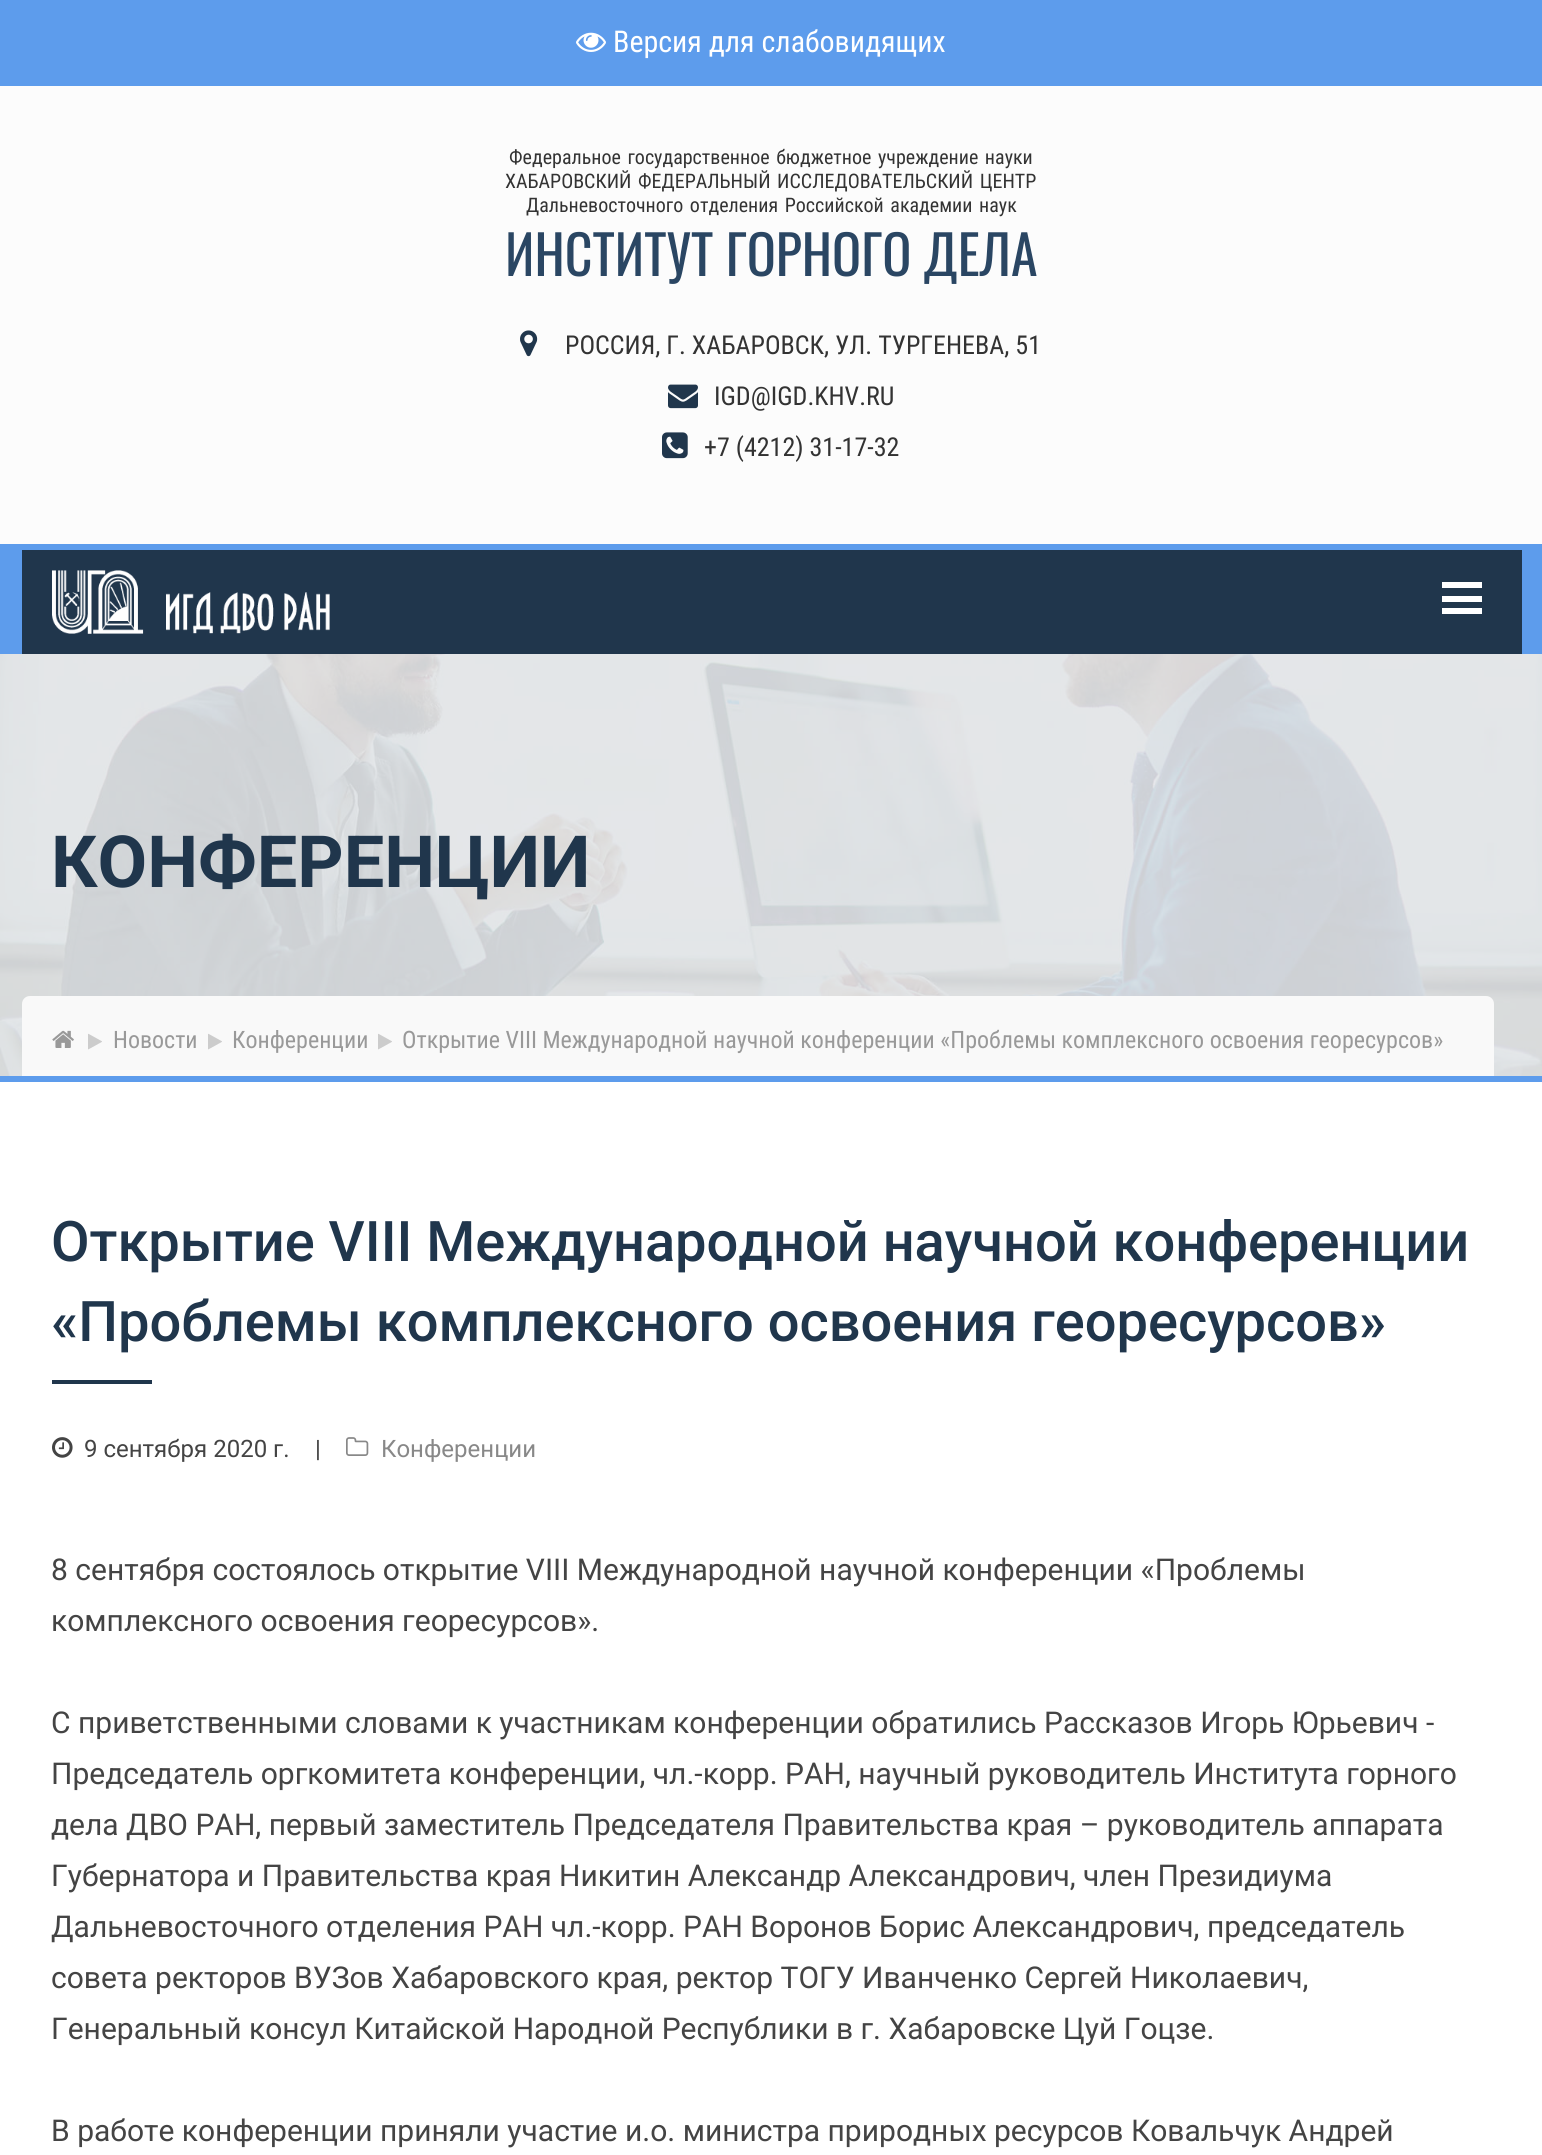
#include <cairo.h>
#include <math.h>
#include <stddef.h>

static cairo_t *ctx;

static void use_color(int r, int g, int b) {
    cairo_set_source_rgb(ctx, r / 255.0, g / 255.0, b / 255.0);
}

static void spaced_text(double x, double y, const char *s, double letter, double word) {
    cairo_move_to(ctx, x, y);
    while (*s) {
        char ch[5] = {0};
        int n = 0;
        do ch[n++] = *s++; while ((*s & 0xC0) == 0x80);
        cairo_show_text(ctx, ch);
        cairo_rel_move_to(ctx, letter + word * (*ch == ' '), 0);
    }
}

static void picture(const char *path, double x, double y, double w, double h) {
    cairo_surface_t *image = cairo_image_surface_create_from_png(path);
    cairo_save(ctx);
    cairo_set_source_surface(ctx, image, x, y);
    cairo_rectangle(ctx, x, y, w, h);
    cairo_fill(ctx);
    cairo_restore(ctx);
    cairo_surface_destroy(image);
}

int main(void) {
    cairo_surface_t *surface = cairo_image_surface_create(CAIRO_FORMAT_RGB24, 1542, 2155);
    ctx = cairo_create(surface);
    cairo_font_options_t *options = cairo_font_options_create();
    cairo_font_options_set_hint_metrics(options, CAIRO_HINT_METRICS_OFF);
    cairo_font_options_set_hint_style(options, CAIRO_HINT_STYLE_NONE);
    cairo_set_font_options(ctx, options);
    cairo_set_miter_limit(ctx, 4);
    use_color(255, 255, 255);
    cairo_paint(ctx);
    use_color(93, 156, 236);
    cairo_rectangle(ctx, 0, 0, 1542, 654);
    cairo_fill(ctx);
    picture("img1.png", 576, 32, 30, 20);
    cairo_select_font_face(ctx, "Roboto Condensed", CAIRO_FONT_SLANT_NORMAL, CAIRO_FONT_WEIGHT_NORMAL);
    cairo_set_font_size(ctx, 30);
    use_color(255, 255, 255);
    cairo_move_to(ctx, 613, 52);
    cairo_show_text(ctx, "Версия для слабовидящих");
    use_color(252, 252, 252);
    cairo_rectangle(ctx, 0, 86, 1542, 458);
    cairo_fill(ctx);
    cairo_set_font_size(ctx, 20);
    use_color(51, 51, 51);
    spaced_text(509, 164, "Федеральное государственное бюджетное учреждение науки", 0, 2);
    spaced_text(505, 188, "ХАБАРОВСКИЙ ФЕДЕРАЛЬНЫЙ ИССЛЕДОВАТЕЛЬСКИЙ ЦЕНТР", 0, 2);
    spaced_text(526, 212, "Дальневосточного отделения Российской академии наук", 0, 2);
    cairo_select_font_face(ctx, "Oswald", CAIRO_FONT_SLANT_NORMAL, CAIRO_FONT_WEIGHT_NORMAL);
    cairo_set_font_size(ctx, 54);
    use_color(42, 70, 99);
    cairo_move_to(ctx, 505, 276);
    cairo_show_text(ctx, "ИНСТИТУТ ГОРНОГО ДЕЛА");
    picture("img2.png", 520, 330, 18, 27);
    cairo_select_font_face(ctx, "Roboto Condensed", CAIRO_FONT_SLANT_NORMAL, CAIRO_FONT_WEIGHT_NORMAL);
    cairo_set_font_size(ctx, 26);
    use_color(51, 51, 51);
    cairo_move_to(ctx, 565, 354);
    cairo_show_text(ctx, "РОССИЯ, Г. ХАБАРОВСК, УЛ. ТУРГЕНЕВА, 51");
    picture("img3.png", 668, 384, 30, 25);
    cairo_move_to(ctx, 714, 405);
    cairo_show_text(ctx, "IGD@IGD.KHV.RU");
    picture("img4.png", 662, 432, 26, 27);
    cairo_move_to(ctx, 704, 456);
    cairo_show_text(ctx, "+7 (4212) 31-17-32");
    use_color(32, 54, 76);
    cairo_rectangle(ctx, 22, 550, 1500, 104);
    cairo_fill(ctx);
    picture("img5.png", 52, 570, 278, 64);
    use_color(255, 255, 255);
    cairo_rectangle(ctx, 1442, 582, 40, 6);
    cairo_fill(ctx);
    cairo_rectangle(ctx, 1442, 596, 40, 6);
    cairo_fill(ctx);
    cairo_rectangle(ctx, 1442, 608, 40, 6);
    cairo_fill(ctx);
    picture("img6.png", 0, 654, 1542, 422);
    cairo_select_font_face(ctx, "Roboto", CAIRO_FONT_SLANT_NORMAL, CAIRO_FONT_WEIGHT_BOLD);
    cairo_set_font_size(ctx, 72);
    use_color(32, 54, 76);
    cairo_move_to(ctx, 51, 887);
    cairo_show_text(ctx, "КОНФЕРЕНЦИИ");
    use_color(249, 249, 249);
    cairo_new_path(ctx);
    cairo_move_to(ctx, 30, 996);
    cairo_line_to(ctx, 1486, 996);
    cairo_curve_to(ctx, 1490.5, 996, 1494, 999.5, 1494, 1004);
    cairo_line_to(ctx, 1494, 1076);
    cairo_line_to(ctx, 22, 1076);
    cairo_line_to(ctx, 22, 1004);
    cairo_curve_to(ctx, 22, 999.5, 25.5, 996, 30, 996);
    cairo_close_path(ctx);
    cairo_fill(ctx);
    picture("img7.png", 52, 1030, 22, 18);
    picture("img8.png", 88, 1033, 14, 17);
    cairo_select_font_face(ctx, "Roboto Condensed", CAIRO_FONT_SLANT_NORMAL, CAIRO_FONT_WEIGHT_NORMAL);
    cairo_set_font_size(ctx, 24);
    use_color(153, 153, 153);
    cairo_move_to(ctx, 113, 1048);
    cairo_show_text(ctx, "Новости");
    picture("img8.png", 208, 1033, 14, 17);
    cairo_move_to(ctx, 232, 1048);
    cairo_show_text(ctx, "Конференции");
    picture("img8.png", 378, 1033, 14, 17);
    cairo_move_to(ctx, 402, 1048);
    cairo_show_text(ctx, "Открытие VIII Международной научной конференции «Проблемы комплексного освоения георесурсов»");
    use_color(93, 156, 236);
    cairo_rectangle(ctx, 0, 1076, 1542, 6);
    cairo_fill(ctx);
    cairo_select_font_face(ctx, "Roboto Medium", CAIRO_FONT_SLANT_NORMAL, CAIRO_FONT_WEIGHT_NORMAL);
    cairo_set_font_size(ctx, 56);
    use_color(32, 54, 76);
    cairo_move_to(ctx, 51, 1261);
    cairo_show_text(ctx, "Открытие VIII Международной научной конференции");
    cairo_move_to(ctx, 51, 1341);
    cairo_show_text(ctx, "«Проблемы комплексного освоения георесурсов»");
    cairo_rectangle(ctx, 52, 1380, 100, 4);
    cairo_fill(ctx);
    picture("img9.png", 52, 1437, 21, 21);
    cairo_select_font_face(ctx, "Roboto", CAIRO_FONT_SLANT_NORMAL, CAIRO_FONT_WEIGHT_NORMAL);
    cairo_set_font_size(ctx, 24);
    use_color(68, 68, 68);
    cairo_move_to(ctx, 84, 1457);
    cairo_show_text(ctx, "9 сентября 2020 г.");
    cairo_move_to(ctx, 315, 1457);
    cairo_show_text(ctx, "|");
    picture("img10.png", 346, 1437, 23, 19);
    use_color(136, 136, 136);
    cairo_move_to(ctx, 381, 1457);
    cairo_show_text(ctx, "Конференции");
    cairo_set_font_size(ctx, 30);
    use_color(68, 68, 68);
    cairo_move_to(ctx, 51, 1580);
    cairo_show_text(ctx, "8 сентября состоялось открытие VIII Международной научной конференции «Проблемы");
    cairo_move_to(ctx, 51, 1631);
    cairo_show_text(ctx, "комплексного освоения георесурсов».");
    cairo_move_to(ctx, 51, 1733);
    cairo_show_text(ctx, "С приветственными словами к участникам конференции обратились Рассказов Игорь Юрьевич -");
    cairo_move_to(ctx, 51, 1784);
    cairo_show_text(ctx, "Председатель оргкомитета конференции, чл.-корр. РАН, научный руководитель Института горного");
    cairo_move_to(ctx, 51, 1835);
    cairo_show_text(ctx, "дела ДВО РАН, первый заместитель Председателя Правительства края – руководитель аппарата");
    cairo_move_to(ctx, 51, 1886);
    cairo_show_text(ctx, "Губернатора и Правительства края Никитин Александр Александрович, член Президиума");
    cairo_move_to(ctx, 51, 1937);
    cairo_show_text(ctx, "Дальневосточного отделения РАН чл.-корр. РАН Воронов Борис Александрович, председатель");
    cairo_move_to(ctx, 51, 1988);
    cairo_show_text(ctx, "совета ректоров ВУЗов Хабаровского края, ректор ТОГУ Иванченко Сергей Николаевич,");
    cairo_move_to(ctx, 51, 2039);
    cairo_show_text(ctx, "Генеральный консул Китайской Народной Республики в г. Хабаровске Цуй Гоцзе.");
    cairo_move_to(ctx, 51, 2141);
    cairo_show_text(ctx, "В работе конференции приняли участие и.о. министра природных ресурсов Ковальчук Андрей");
    cairo_surface_write_to_png(surface, "result.png");
    cairo_font_options_destroy(options);
    cairo_destroy(ctx);
    cairo_surface_destroy(surface);
    return 0;
}
